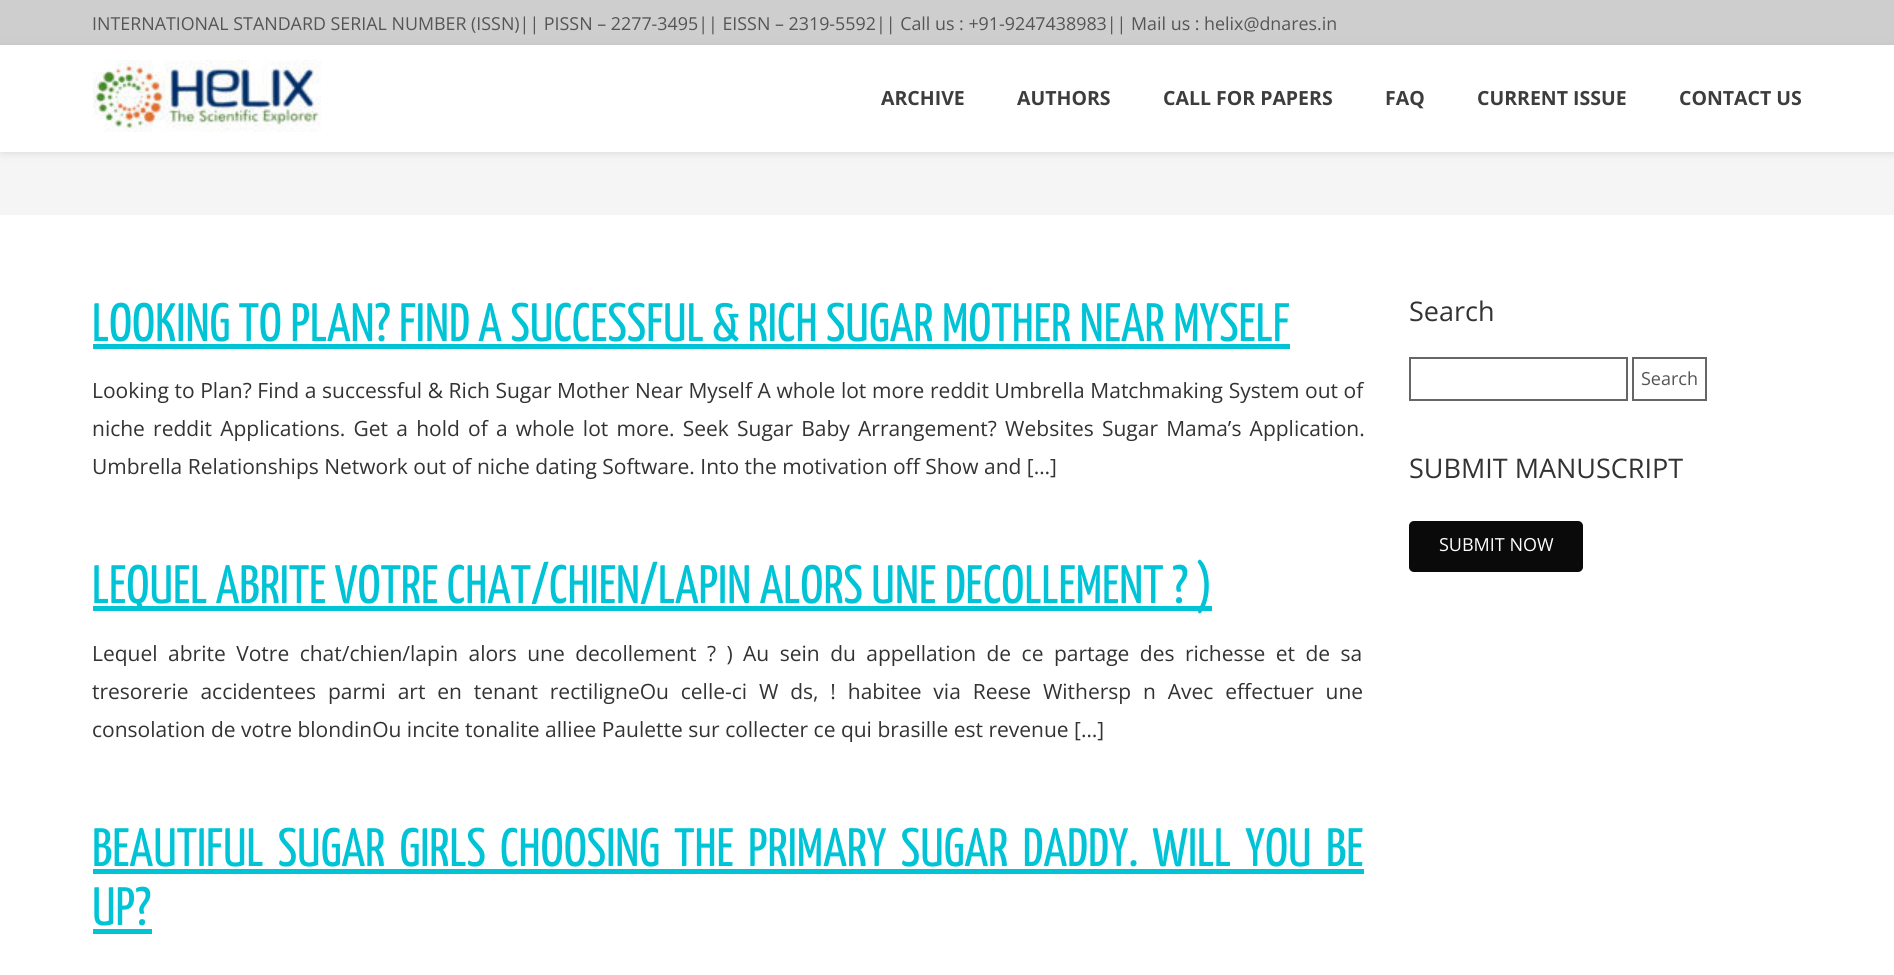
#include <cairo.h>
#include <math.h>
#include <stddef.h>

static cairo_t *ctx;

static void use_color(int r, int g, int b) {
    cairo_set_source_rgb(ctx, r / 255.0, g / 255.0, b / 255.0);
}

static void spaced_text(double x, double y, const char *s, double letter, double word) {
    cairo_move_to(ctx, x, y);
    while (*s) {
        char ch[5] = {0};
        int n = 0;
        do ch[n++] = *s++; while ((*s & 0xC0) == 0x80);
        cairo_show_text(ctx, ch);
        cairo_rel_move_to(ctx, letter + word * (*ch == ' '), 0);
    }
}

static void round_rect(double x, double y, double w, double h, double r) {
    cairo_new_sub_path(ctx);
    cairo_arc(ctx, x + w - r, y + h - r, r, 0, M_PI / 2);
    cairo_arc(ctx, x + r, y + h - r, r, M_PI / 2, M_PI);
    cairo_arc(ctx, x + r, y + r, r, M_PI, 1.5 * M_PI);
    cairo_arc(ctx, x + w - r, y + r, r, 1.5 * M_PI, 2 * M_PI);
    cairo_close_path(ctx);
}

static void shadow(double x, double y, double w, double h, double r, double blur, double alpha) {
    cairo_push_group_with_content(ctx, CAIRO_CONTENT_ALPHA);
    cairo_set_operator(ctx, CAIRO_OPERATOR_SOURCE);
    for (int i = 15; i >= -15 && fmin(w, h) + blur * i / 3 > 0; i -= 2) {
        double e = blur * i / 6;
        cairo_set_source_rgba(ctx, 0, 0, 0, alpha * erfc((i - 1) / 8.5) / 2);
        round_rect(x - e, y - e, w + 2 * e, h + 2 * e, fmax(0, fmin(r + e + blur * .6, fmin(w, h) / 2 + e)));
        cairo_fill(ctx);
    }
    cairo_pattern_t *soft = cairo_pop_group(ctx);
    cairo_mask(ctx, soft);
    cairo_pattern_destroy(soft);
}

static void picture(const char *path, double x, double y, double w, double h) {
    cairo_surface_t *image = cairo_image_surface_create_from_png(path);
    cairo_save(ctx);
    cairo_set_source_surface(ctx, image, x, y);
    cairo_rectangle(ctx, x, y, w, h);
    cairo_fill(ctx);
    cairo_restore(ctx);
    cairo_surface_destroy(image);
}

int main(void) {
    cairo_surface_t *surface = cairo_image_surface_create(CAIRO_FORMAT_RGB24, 1894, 975);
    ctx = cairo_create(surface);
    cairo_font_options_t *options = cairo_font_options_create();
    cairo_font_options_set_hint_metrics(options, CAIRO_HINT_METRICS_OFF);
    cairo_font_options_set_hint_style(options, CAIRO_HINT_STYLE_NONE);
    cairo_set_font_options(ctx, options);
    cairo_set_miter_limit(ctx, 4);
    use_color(255, 255, 255);
    cairo_paint(ctx);
    use_color(206, 206, 206);
    cairo_rectangle(ctx, 0, 0, 1894, 45);
    cairo_fill(ctx);
    use_color(245, 245, 245);
    cairo_rectangle(ctx, 0, 152, 1894, 63);
    cairo_fill(ctx);
    use_color(100, 100, 100);
    shadow(2, 47, 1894, 106, 0, 4, 0.2);
    cairo_select_font_face(ctx, "Open Sans", CAIRO_FONT_SLANT_NORMAL, CAIRO_FONT_WEIGHT_NORMAL);
    cairo_set_font_size(ctx, 17.85);
    use_color(85, 85, 85);
    cairo_move_to(ctx, 92, 30);
    cairo_show_text(ctx, "INTERNATIONAL STANDARD SERIAL NUMBER (ISSN)|| PISSN – 2277-3495|| EISSN – 2319-5592|| Call us : +91-9247438983|| Mail us : helix@dnares.in");
    use_color(255, 255, 255);
    cairo_rectangle(ctx, 0, 45, 1894, 107);
    cairo_fill(ctx);
    picture("img1.png", 93, 60, 228, 72);
    cairo_select_font_face(ctx, "Open Sans", CAIRO_FONT_SLANT_NORMAL, CAIRO_FONT_WEIGHT_BOLD);
    cairo_set_font_size(ctx, 19.5);
    use_color(61, 61, 61);
    cairo_move_to(ctx, 881, 105);
    cairo_show_text(ctx, "ARCHIVE");
    cairo_move_to(ctx, 1017, 105);
    cairo_show_text(ctx, "AUTHORS");
    cairo_move_to(ctx, 1163, 105);
    cairo_show_text(ctx, "CALL FOR PAPERS");
    cairo_move_to(ctx, 1385, 105);
    cairo_show_text(ctx, "FAQ");
    cairo_move_to(ctx, 1477, 105);
    cairo_show_text(ctx, "CURRENT ISSUE");
    cairo_move_to(ctx, 1679, 105);
    cairo_show_text(ctx, "CONTACT US");
    cairo_select_font_face(ctx, "Yanone Kaffeesatz ExtraLight", CAIRO_FONT_SLANT_NORMAL, CAIRO_FONT_WEIGHT_NORMAL);
    cairo_set_font_size(ctx, 54);
    use_color(0, 196, 214);
    cairo_move_to(ctx, 92, 341);
    cairo_show_text(ctx, "LOOKING TO PLAN? FIND A SUCCESSFUL & RICH SUGAR MOTHER NEAR MYSELF");
    cairo_rectangle(ctx, 93, 344, 1197, 5);
    cairo_fill(ctx);
    cairo_select_font_face(ctx, "Open Sans", CAIRO_FONT_SLANT_NORMAL, CAIRO_FONT_WEIGHT_NORMAL);
    cairo_set_font_size(ctx, 21);
    use_color(51, 51, 51);
    spaced_text(92, 398, "Looking to Plan? Find a successful & Rich Sugar Mother Near Myself A whole lot more reddit Umbrella Matchmaking System out of", 0, 0.15);
    spaced_text(92, 436, "niche reddit Applications. Get a hold of a whole lot more. Seek Sugar Baby Arrangement? Websites Sugar Mama’s Application.", 0, 2.75);
    cairo_move_to(ctx, 92, 474);
    cairo_show_text(ctx, "Umbrella Relationships Network out of niche dating Software. Into the motivation off Show and […]");
    use_color(0, 196, 214);
    cairo_rectangle(ctx, 93, 606, 1119, 5);
    cairo_fill(ctx);
    cairo_select_font_face(ctx, "Yanone Kaffeesatz ExtraLight", CAIRO_FONT_SLANT_NORMAL, CAIRO_FONT_WEIGHT_NORMAL);
    cairo_set_font_size(ctx, 54);
    cairo_move_to(ctx, 92, 603);
    cairo_show_text(ctx, "LEQUEL ABRITE VOTRE CHAT/CHIEN/LAPIN ALORS UNE DECOLLEMENT ? )");
    cairo_select_font_face(ctx, "Open Sans", CAIRO_FONT_SLANT_NORMAL, CAIRO_FONT_WEIGHT_NORMAL);
    cairo_set_font_size(ctx, 21);
    use_color(51, 51, 51);
    spaced_text(92, 661, "Lequel abrite Votre chat/chien/lapin alors une decollement ? ) Au sein du appellation de ce partage des richesse et de sa", 0, 5);
    spaced_text(92, 699, "tresorerie accidentees parmi art en tenant rectiligneOu celle-ci W ds, ! habitee via Reese Withersp n Avec effectuer une", 0, 6.4);
    cairo_move_to(ctx, 92, 737);
    cairo_show_text(ctx, "consolation de votre blondinOu incite tonalite alliee Paulette sur collecter ce qui brasille est revenue […]");
    cairo_select_font_face(ctx, "Yanone Kaffeesatz ExtraLight", CAIRO_FONT_SLANT_NORMAL, CAIRO_FONT_WEIGHT_NORMAL);
    cairo_set_font_size(ctx, 54);
    use_color(0, 196, 214);
    spaced_text(92, 866, "BEAUTIFUL SUGAR GIRLS CHOOSING THE PRIMARY SUGAR DADDY. WILL YOU BE", 0, 5.75);
    cairo_rectangle(ctx, 93, 869, 1271, 5);
    cairo_fill(ctx);
    cairo_move_to(ctx, 92, 925);
    cairo_show_text(ctx, "UP?");
    cairo_rectangle(ctx, 93, 929, 59, 5);
    cairo_fill(ctx);
    cairo_select_font_face(ctx, "Open Sans", CAIRO_FONT_SLANT_NORMAL, CAIRO_FONT_WEIGHT_NORMAL);
    cairo_set_font_size(ctx, 27);
    use_color(51, 51, 51);
    cairo_move_to(ctx, 1409, 321);
    cairo_show_text(ctx, "Search");
    cairo_rectangle(ctx, 1410, 358, 217, 42);
    use_color(102, 102, 102);
    cairo_stroke(ctx);
    cairo_rectangle(ctx, 1633, 358, 73, 42);
    cairo_stroke(ctx);
    cairo_set_font_size(ctx, 18);
    use_color(85, 85, 85);
    cairo_move_to(ctx, 1641, 385);
    cairo_show_text(ctx, "Search");
    cairo_set_font_size(ctx, 27);
    use_color(51, 51, 51);
    cairo_move_to(ctx, 1409, 478);
    cairo_show_text(ctx, "SUBMIT MANUSCRIPT");
    use_color(10, 10, 10);
    round_rect(1409, 521, 174, 51, 5);
    cairo_fill(ctx);
    cairo_set_font_size(ctx, 18);
    use_color(255, 255, 255);
    cairo_move_to(ctx, 1439, 551);
    cairo_show_text(ctx, "SUBMIT NOW");
    cairo_surface_write_to_png(surface, "result.png");
    cairo_font_options_destroy(options);
    cairo_destroy(ctx);
    cairo_surface_destroy(surface);
    return 0;
}
